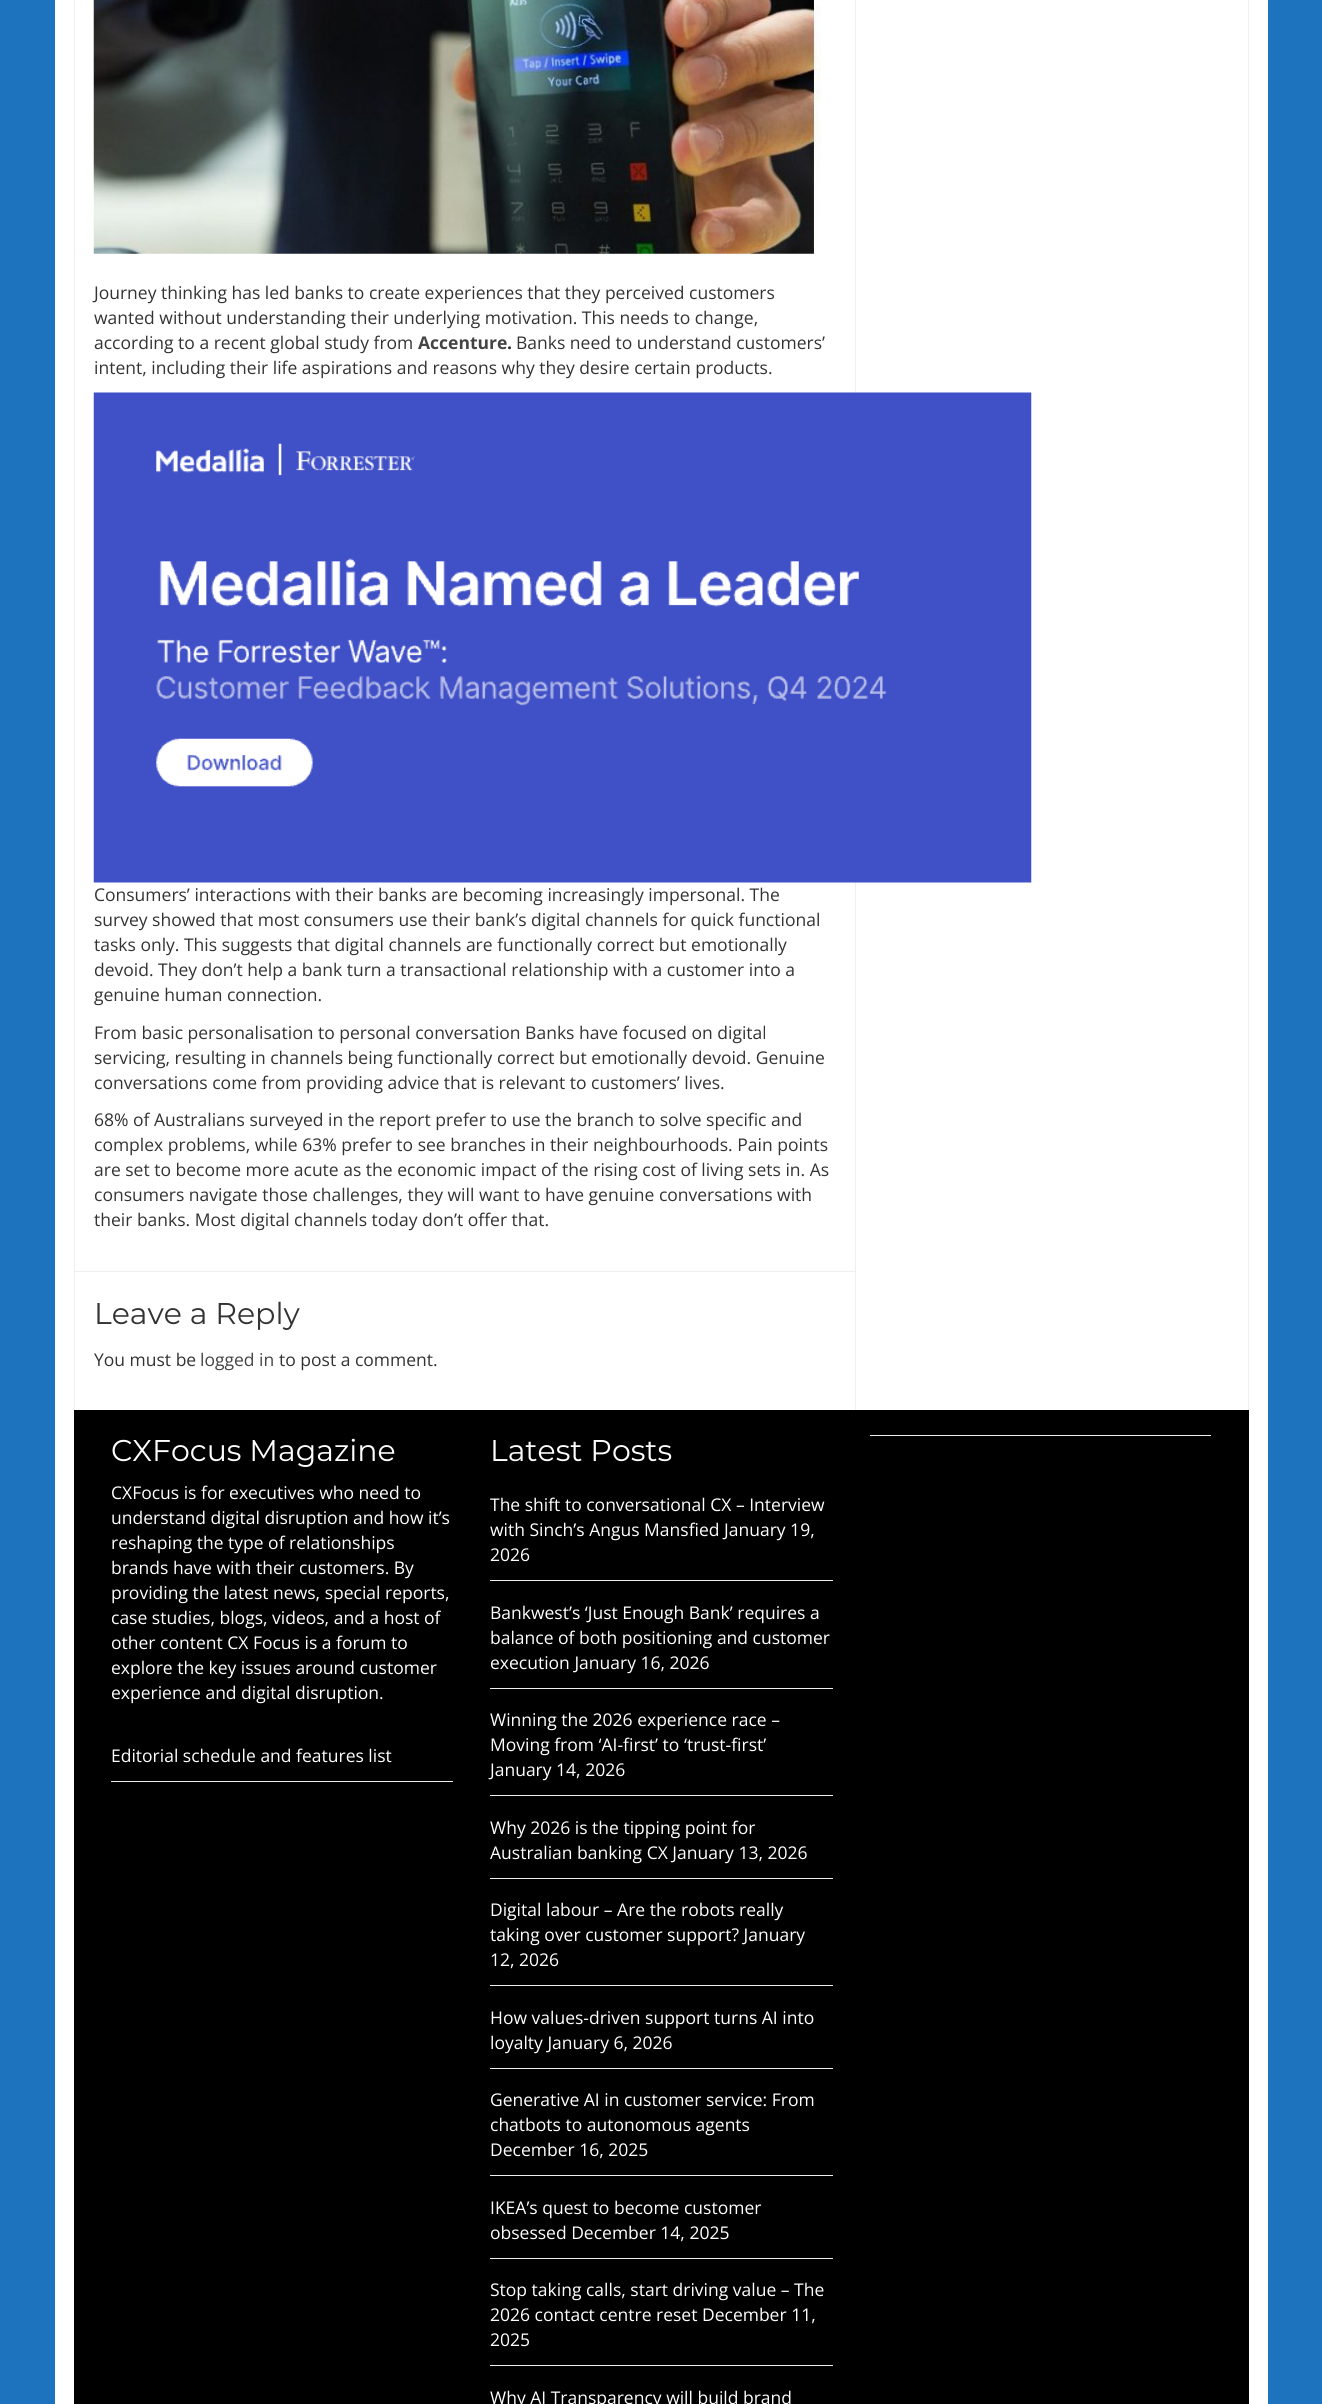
#include <cairo.h>
#include <math.h>
#include <stddef.h>

static cairo_t *ctx;

static void use_color(int r, int g, int b) {
    cairo_set_source_rgb(ctx, r / 255.0, g / 255.0, b / 255.0);
}

static void picture(const char *path, double x, double y, double w, double h) {
    cairo_surface_t *image = cairo_image_surface_create_from_png(path);
    cairo_save(ctx);
    cairo_set_source_surface(ctx, image, x, y);
    cairo_rectangle(ctx, x, y, w, h);
    cairo_fill(ctx);
    cairo_restore(ctx);
    cairo_surface_destroy(image);
}

int main(void) {
    cairo_surface_t *surface = cairo_image_surface_create(CAIRO_FORMAT_RGB24, 1322, 2404);
    ctx = cairo_create(surface);
    cairo_font_options_t *options = cairo_font_options_create();
    cairo_font_options_set_hint_metrics(options, CAIRO_HINT_METRICS_OFF);
    cairo_font_options_set_hint_style(options, CAIRO_HINT_STYLE_NONE);
    cairo_set_font_options(ctx, options);
    cairo_set_miter_limit(ctx, 4);
    use_color(30, 115, 190);
    cairo_paint(ctx);
    use_color(255, 255, 255);
    cairo_rectangle(ctx, 55, 0, 1213, 2404);
    cairo_fill(ctx);
    use_color(239, 239, 239);
    cairo_rectangle(ctx, 1248, 0, 1, 1410);
    cairo_fill(ctx);
    cairo_rectangle(ctx, 74, 0, 1, 1410);
    cairo_fill(ctx);
    cairo_rectangle(ctx, 855, 0, 1, 1410);
    cairo_fill(ctx);
    picture("img1.png", 93, 0, 728, 254);
    cairo_select_font_face(ctx, "Open Sans", CAIRO_FONT_SLANT_NORMAL, CAIRO_FONT_WEIGHT_NORMAL);
    cairo_set_font_size(ctx, 17.5);
    use_color(51, 51, 51);
    cairo_move_to(ctx, 94, 299);
    cairo_show_text(ctx, "Journey thinking has led banks to create experiences that they perceived customers");
    cairo_move_to(ctx, 94, 324);
    cairo_show_text(ctx, "wanted without understanding their underlying motivation. This needs to change,");
    cairo_move_to(ctx, 94, 349);
    cairo_show_text(ctx, "according to a recent global study from");
    cairo_select_font_face(ctx, "Open Sans", CAIRO_FONT_SLANT_NORMAL, CAIRO_FONT_WEIGHT_BOLD);
    use_color(68, 68, 68);
    cairo_move_to(ctx, 418, 349);
    cairo_show_text(ctx, "Accenture");
    use_color(51, 51, 51);
    cairo_move_to(ctx, 507, 349);
    cairo_show_text(ctx, ".");
    cairo_select_font_face(ctx, "Open Sans", CAIRO_FONT_SLANT_NORMAL, CAIRO_FONT_WEIGHT_NORMAL);
    cairo_move_to(ctx, 516, 349);
    cairo_show_text(ctx, "Banks need to understand customers’");
    cairo_move_to(ctx, 94, 374);
    cairo_show_text(ctx, "intent, including their life aspirations and reasons why they desire certain products.");
    picture("img2.png", 93, 392, 939, 491);
    cairo_move_to(ctx, 94, 901);
    cairo_show_text(ctx, "Consumers’ interactions with their banks are becoming increasingly impersonal. The");
    cairo_move_to(ctx, 94, 926);
    cairo_show_text(ctx, "survey showed that most consumers use their bank’s digital channels for quick functional");
    cairo_move_to(ctx, 94, 951);
    cairo_show_text(ctx, "tasks only. This suggests that digital channels are functionally correct but emotionally");
    cairo_move_to(ctx, 94, 976);
    cairo_show_text(ctx, "devoid. They don’t help a bank turn a transactional relationship with a customer into a");
    cairo_move_to(ctx, 94, 1001);
    cairo_show_text(ctx, "genuine human connection.");
    cairo_move_to(ctx, 94, 1039);
    cairo_show_text(ctx, "From basic personalisation to personal conversation Banks have focused on digital");
    cairo_move_to(ctx, 94, 1064);
    cairo_show_text(ctx, "servicing, resulting in channels being functionally correct but emotionally devoid. Genuine");
    cairo_move_to(ctx, 94, 1089);
    cairo_show_text(ctx, "conversations come from providing advice that is relevant to customers’ lives.");
    cairo_move_to(ctx, 94, 1126);
    cairo_show_text(ctx, "68% of Australians surveyed in the report prefer to use the branch to solve specific and");
    cairo_move_to(ctx, 94, 1151);
    cairo_show_text(ctx, "complex problems, while 63% prefer to see branches in their neighbourhoods. Pain points");
    cairo_move_to(ctx, 94, 1176);
    cairo_show_text(ctx, "are set to become more acute as the economic impact of the rising cost of living sets in. As");
    cairo_move_to(ctx, 94, 1201);
    cairo_show_text(ctx, "consumers navigate those challenges, they will want to have genuine conversations with");
    cairo_move_to(ctx, 94, 1226);
    cairo_show_text(ctx, "their banks. Most digital channels today don’t offer that.");
    use_color(239, 239, 239);
    cairo_rectangle(ctx, 75, 1271, 780, 1);
    cairo_fill(ctx);
    cairo_select_font_face(ctx, "Montserrat", CAIRO_FONT_SLANT_NORMAL, CAIRO_FONT_WEIGHT_NORMAL);
    cairo_set_font_size(ctx, 30);
    use_color(51, 51, 51);
    cairo_move_to(ctx, 94, 1324);
    cairo_show_text(ctx, "Leave a Reply");
    cairo_select_font_face(ctx, "Open Sans", CAIRO_FONT_SLANT_NORMAL, CAIRO_FONT_WEIGHT_NORMAL);
    cairo_set_font_size(ctx, 17.5);
    cairo_move_to(ctx, 94, 1366);
    cairo_show_text(ctx, "You must be");
    use_color(68, 68, 68);
    cairo_move_to(ctx, 200, 1366);
    cairo_show_text(ctx, "logged in");
    use_color(51, 51, 51);
    cairo_move_to(ctx, 279, 1366);
    cairo_show_text(ctx, "to post a comment.");
    use_color(0, 0, 0);
    cairo_rectangle(ctx, 74, 1410, 1175, 994);
    cairo_fill(ctx);
    use_color(239, 239, 239);
    cairo_rectangle(ctx, 870, 1435, 341, 1);
    cairo_fill(ctx);
    cairo_select_font_face(ctx, "Montserrat", CAIRO_FONT_SLANT_NORMAL, CAIRO_FONT_WEIGHT_NORMAL);
    cairo_set_font_size(ctx, 30);
    use_color(255, 255, 255);
    cairo_move_to(ctx, 111, 1461);
    cairo_show_text(ctx, "CXFocus Magazine");
    cairo_select_font_face(ctx, "Open Sans", CAIRO_FONT_SLANT_NORMAL, CAIRO_FONT_WEIGHT_NORMAL);
    cairo_set_font_size(ctx, 17.5);
    cairo_move_to(ctx, 111, 1499);
    cairo_show_text(ctx, "CXFocus is for executives who need to");
    cairo_move_to(ctx, 111, 1524);
    cairo_show_text(ctx, "understand digital disruption and how it’s");
    cairo_move_to(ctx, 111, 1549);
    cairo_show_text(ctx, "reshaping the type of relationships");
    cairo_move_to(ctx, 111, 1574);
    cairo_show_text(ctx, "brands have with their customers. By");
    cairo_move_to(ctx, 111, 1599);
    cairo_show_text(ctx, "providing the latest news, special reports,");
    cairo_move_to(ctx, 111, 1624);
    cairo_show_text(ctx, "case studies, blogs, videos, and a host of");
    cairo_move_to(ctx, 111, 1649);
    cairo_show_text(ctx, "other content CX Focus is a forum to");
    cairo_move_to(ctx, 111, 1674);
    cairo_show_text(ctx, "explore the key issues around customer");
    cairo_move_to(ctx, 111, 1699);
    cairo_show_text(ctx, "experience and digital disruption.");
    use_color(239, 239, 239);
    cairo_rectangle(ctx, 111, 1781, 342, 1);
    cairo_fill(ctx);
    use_color(255, 255, 255);
    cairo_move_to(ctx, 111, 1762);
    cairo_show_text(ctx, "Editorial schedule and features list");
    cairo_select_font_face(ctx, "Montserrat", CAIRO_FONT_SLANT_NORMAL, CAIRO_FONT_WEIGHT_NORMAL);
    cairo_set_font_size(ctx, 30);
    cairo_move_to(ctx, 490, 1461);
    cairo_show_text(ctx, "Latest Posts");
    use_color(239, 239, 239);
    cairo_rectangle(ctx, 490, 1580, 343, 1);
    cairo_fill(ctx);
    cairo_select_font_face(ctx, "Open Sans", CAIRO_FONT_SLANT_NORMAL, CAIRO_FONT_WEIGHT_NORMAL);
    cairo_set_font_size(ctx, 17.5);
    use_color(255, 255, 255);
    cairo_move_to(ctx, 490, 1511);
    cairo_show_text(ctx, "The shift to conversational CX – Interview");
    cairo_move_to(ctx, 490, 1536);
    cairo_show_text(ctx, "with Sinch’s Angus Mansfied January 19,");
    cairo_move_to(ctx, 490, 1561);
    cairo_show_text(ctx, "2026");
    use_color(239, 239, 239);
    cairo_rectangle(ctx, 490, 1688, 343, 1);
    cairo_fill(ctx);
    use_color(255, 255, 255);
    cairo_move_to(ctx, 490, 1619);
    cairo_show_text(ctx, "Bankwest’s ‘Just Enough Bank’ requires a");
    cairo_move_to(ctx, 490, 1644);
    cairo_show_text(ctx, "balance of both positioning and customer");
    cairo_move_to(ctx, 490, 1669);
    cairo_show_text(ctx, "execution January 16, 2026");
    use_color(239, 239, 239);
    cairo_rectangle(ctx, 490, 1795, 343, 1);
    cairo_fill(ctx);
    use_color(255, 255, 255);
    cairo_move_to(ctx, 490, 1726);
    cairo_show_text(ctx, "Winning the 2026 experience race –");
    cairo_move_to(ctx, 490, 1751);
    cairo_show_text(ctx, "Moving from ‘AI-first’ to ‘trust-first’");
    cairo_move_to(ctx, 490, 1776);
    cairo_show_text(ctx, "January 14, 2026");
    use_color(239, 239, 239);
    cairo_rectangle(ctx, 490, 1878, 343, 1);
    cairo_fill(ctx);
    use_color(255, 255, 255);
    cairo_move_to(ctx, 490, 1834);
    cairo_show_text(ctx, "Why 2026 is the tipping point for");
    cairo_move_to(ctx, 490, 1859);
    cairo_show_text(ctx, "Australian banking CX January 13, 2026");
    use_color(239, 239, 239);
    cairo_rectangle(ctx, 490, 1985, 343, 1);
    cairo_fill(ctx);
    use_color(255, 255, 255);
    cairo_move_to(ctx, 490, 1916);
    cairo_show_text(ctx, "Digital labour – Are the robots really");
    cairo_move_to(ctx, 490, 1941);
    cairo_show_text(ctx, "taking over customer support? January");
    cairo_move_to(ctx, 490, 1966);
    cairo_show_text(ctx, "12, 2026");
    use_color(239, 239, 239);
    cairo_rectangle(ctx, 490, 2068, 343, 1);
    cairo_fill(ctx);
    use_color(255, 255, 255);
    cairo_move_to(ctx, 490, 2024);
    cairo_show_text(ctx, "How values-driven support turns AI into");
    cairo_move_to(ctx, 490, 2049);
    cairo_show_text(ctx, "loyalty January 6, 2026");
    use_color(239, 239, 239);
    cairo_rectangle(ctx, 490, 2175, 343, 1);
    cairo_fill(ctx);
    use_color(255, 255, 255);
    cairo_move_to(ctx, 490, 2106);
    cairo_show_text(ctx, "Generative AI in customer service: From");
    cairo_move_to(ctx, 490, 2131);
    cairo_show_text(ctx, "chatbots to autonomous agents");
    cairo_move_to(ctx, 490, 2156);
    cairo_show_text(ctx, "December 16, 2025");
    use_color(239, 239, 239);
    cairo_rectangle(ctx, 490, 2258, 343, 1);
    cairo_fill(ctx);
    use_color(255, 255, 255);
    cairo_move_to(ctx, 490, 2214);
    cairo_show_text(ctx, "IKEA’s quest to become customer");
    cairo_move_to(ctx, 490, 2239);
    cairo_show_text(ctx, "obsessed December 14, 2025");
    use_color(239, 239, 239);
    cairo_rectangle(ctx, 490, 2365, 343, 1);
    cairo_fill(ctx);
    use_color(255, 255, 255);
    cairo_move_to(ctx, 490, 2296);
    cairo_show_text(ctx, "Stop taking calls, start driving value – The");
    cairo_move_to(ctx, 490, 2321);
    cairo_show_text(ctx, "2026 contact centre reset December 11,");
    cairo_move_to(ctx, 490, 2346);
    cairo_show_text(ctx, "2025");
    cairo_move_to(ctx, 490, 2404);
    cairo_show_text(ctx, "Why AI Transparency will build brand");
    cairo_surface_write_to_png(surface, "result.png");
    cairo_font_options_destroy(options);
    cairo_destroy(ctx);
    cairo_surface_destroy(surface);
    return 0;
}
